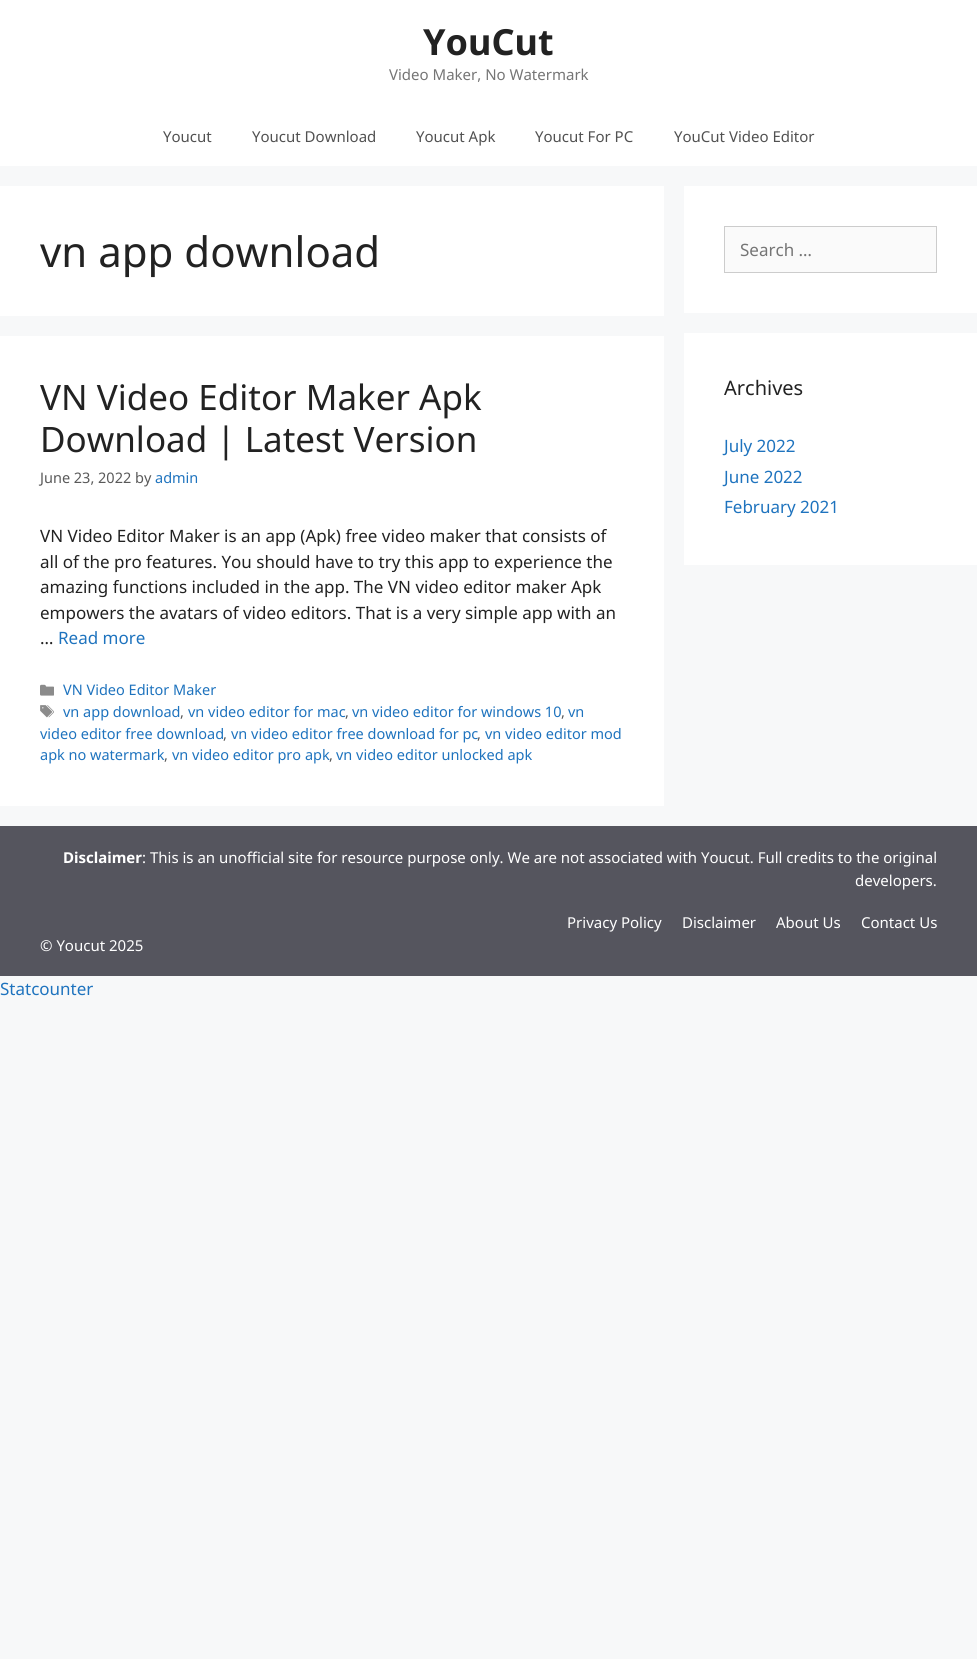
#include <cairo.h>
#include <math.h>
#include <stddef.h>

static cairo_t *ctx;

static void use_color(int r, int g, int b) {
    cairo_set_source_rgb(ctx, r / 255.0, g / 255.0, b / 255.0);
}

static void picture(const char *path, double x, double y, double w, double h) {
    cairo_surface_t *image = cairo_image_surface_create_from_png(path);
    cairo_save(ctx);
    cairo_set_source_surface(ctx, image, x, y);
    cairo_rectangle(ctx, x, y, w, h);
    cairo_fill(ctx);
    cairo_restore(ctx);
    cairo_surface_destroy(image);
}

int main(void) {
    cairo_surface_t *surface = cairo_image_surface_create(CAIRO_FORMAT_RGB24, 977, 1659);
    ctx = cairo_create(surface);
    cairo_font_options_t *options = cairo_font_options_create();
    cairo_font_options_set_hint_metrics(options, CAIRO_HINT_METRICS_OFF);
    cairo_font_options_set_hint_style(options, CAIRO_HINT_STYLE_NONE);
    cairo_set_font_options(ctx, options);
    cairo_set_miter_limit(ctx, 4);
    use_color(247, 248, 249);
    cairo_paint(ctx);
    use_color(255, 255, 255);
    cairo_rectangle(ctx, 0, 0, 977, 166);
    cairo_fill(ctx);
    cairo_select_font_face(ctx, "Noto Sans", CAIRO_FONT_SLANT_NORMAL, CAIRO_FONT_WEIGHT_BOLD);
    cairo_set_font_size(ctx, 36);
    use_color(34, 34, 34);
    cairo_move_to(ctx, 423, 55);
    cairo_show_text(ctx, "YouCut");
    cairo_select_font_face(ctx, "Noto Sans", CAIRO_FONT_SLANT_NORMAL, CAIRO_FONT_WEIGHT_NORMAL);
    cairo_set_font_size(ctx, 15);
    use_color(117, 117, 117);
    cairo_move_to(ctx, 389, 80);
    cairo_show_text(ctx, "Video Maker, No Watermark");
    use_color(81, 81, 81);
    cairo_move_to(ctx, 163, 142);
    cairo_show_text(ctx, "Youcut");
    cairo_move_to(ctx, 252, 142);
    cairo_show_text(ctx, "Youcut Download");
    cairo_move_to(ctx, 416, 142);
    cairo_show_text(ctx, "Youcut Apk");
    cairo_move_to(ctx, 535, 142);
    cairo_show_text(ctx, "Youcut For PC");
    cairo_move_to(ctx, 674, 142);
    cairo_show_text(ctx, "YouCut Video Editor");
    use_color(255, 255, 255);
    cairo_rectangle(ctx, 0, 186, 664, 130);
    cairo_fill(ctx);
    cairo_set_font_size(ctx, 42);
    use_color(34, 34, 34);
    cairo_move_to(ctx, 40, 267);
    cairo_show_text(ctx, "vn app download");
    use_color(255, 255, 255);
    cairo_rectangle(ctx, 0, 336, 664, 470);
    cairo_fill(ctx);
    cairo_set_font_size(ctx, 35);
    use_color(34, 34, 34);
    cairo_move_to(ctx, 40, 410);
    cairo_show_text(ctx, "VN Video Editor Maker Apk");
    cairo_move_to(ctx, 40, 452);
    cairo_show_text(ctx, "Download | Latest Version");
    cairo_set_font_size(ctx, 14.5);
    use_color(89, 89, 89);
    cairo_move_to(ctx, 40, 483);
    cairo_show_text(ctx, "June 23, 2022 by");
    use_color(30, 115, 190);
    cairo_move_to(ctx, 155, 483);
    cairo_show_text(ctx, "admin");
    cairo_set_font_size(ctx, 17);
    use_color(34, 34, 34);
    cairo_move_to(ctx, 40, 542);
    cairo_show_text(ctx, "VN Video Editor Maker is an app (Apk) free video maker that consists of");
    cairo_move_to(ctx, 40, 568);
    cairo_show_text(ctx, "all of the pro features. You should have to try this app to experience the");
    cairo_move_to(ctx, 40, 593);
    cairo_show_text(ctx, "amazing functions included in the app. The VN video editor maker Apk");
    cairo_move_to(ctx, 40, 619);
    cairo_show_text(ctx, "empowers the avatars of video editors. That is a very simple app with an");
    cairo_move_to(ctx, 40, 644);
    cairo_show_text(ctx, "…");
    use_color(30, 115, 190);
    cairo_move_to(ctx, 58, 644);
    cairo_show_text(ctx, "Read more");
    picture("img1.png", 40, 684, 14, 12);
    cairo_set_font_size(ctx, 14.5);
    cairo_move_to(ctx, 63, 695);
    cairo_show_text(ctx, "VN Video Editor Maker");
    picture("img2.png", 40, 705, 14, 13);
    cairo_move_to(ctx, 63, 717);
    cairo_show_text(ctx, "vn app download");
    use_color(89, 89, 89);
    cairo_move_to(ctx, 180, 717);
    cairo_show_text(ctx, ",");
    use_color(30, 115, 190);
    cairo_move_to(ctx, 188, 717);
    cairo_show_text(ctx, "vn video editor for mac");
    use_color(89, 89, 89);
    cairo_move_to(ctx, 345, 717);
    cairo_show_text(ctx, ",");
    use_color(30, 115, 190);
    cairo_move_to(ctx, 352, 717);
    cairo_show_text(ctx, "vn video editor for windows 10");
    use_color(89, 89, 89);
    cairo_move_to(ctx, 561, 717);
    cairo_show_text(ctx, ",");
    use_color(30, 115, 190);
    cairo_move_to(ctx, 568, 717);
    cairo_show_text(ctx, "vn");
    cairo_move_to(ctx, 40, 739);
    cairo_show_text(ctx, "video editor free download");
    use_color(89, 89, 89);
    cairo_move_to(ctx, 223, 739);
    cairo_show_text(ctx, ",");
    use_color(30, 115, 190);
    cairo_move_to(ctx, 231, 739);
    cairo_show_text(ctx, "vn video editor free download for pc");
    use_color(89, 89, 89);
    cairo_move_to(ctx, 477, 739);
    cairo_show_text(ctx, ",");
    use_color(30, 115, 190);
    cairo_move_to(ctx, 485, 739);
    cairo_show_text(ctx, "vn video editor mod");
    cairo_move_to(ctx, 40, 760);
    cairo_show_text(ctx, "apk no watermark");
    use_color(89, 89, 89);
    cairo_move_to(ctx, 164, 760);
    cairo_show_text(ctx, ",");
    use_color(30, 115, 190);
    cairo_move_to(ctx, 172, 760);
    cairo_show_text(ctx, "vn video editor pro apk");
    use_color(89, 89, 89);
    cairo_move_to(ctx, 329, 760);
    cairo_show_text(ctx, ",");
    use_color(30, 115, 190);
    cairo_move_to(ctx, 336, 760);
    cairo_show_text(ctx, "vn video editor unlocked apk");
    use_color(255, 255, 255);
    cairo_rectangle(ctx, 684, 186, 293, 127);
    cairo_fill(ctx);
    use_color(250, 250, 250);
    cairo_rectangle(ctx, 724.5, 226.5, 212, 46);
    cairo_fill_preserve(ctx);
    use_color(204, 204, 204);
    cairo_set_line_width(ctx, 1);
    cairo_stroke(ctx);
    cairo_set_font_size(ctx, 17);
    use_color(117, 117, 117);
    cairo_move_to(ctx, 740, 256);
    cairo_show_text(ctx, "Search …");
    use_color(255, 255, 255);
    cairo_rectangle(ctx, 684, 333, 293, 232);
    cairo_fill(ctx);
    cairo_set_font_size(ctx, 20);
    use_color(34, 34, 34);
    cairo_move_to(ctx, 724, 395);
    cairo_show_text(ctx, "Archives");
    cairo_set_font_size(ctx, 17);
    use_color(30, 115, 190);
    cairo_move_to(ctx, 724, 452);
    cairo_show_text(ctx, "July 2022");
    cairo_move_to(ctx, 724, 483);
    cairo_show_text(ctx, "June 2022");
    cairo_move_to(ctx, 724, 513);
    cairo_show_text(ctx, "February 2021");
    use_color(85, 85, 94);
    cairo_rectangle(ctx, 0, 826, 977, 150);
    cairo_fill(ctx);
    cairo_select_font_face(ctx, "Noto Sans", CAIRO_FONT_SLANT_NORMAL, CAIRO_FONT_WEIGHT_BOLD);
    cairo_set_font_size(ctx, 15);
    use_color(255, 255, 255);
    cairo_move_to(ctx, 63, 863);
    cairo_show_text(ctx, "Disclaimer");
    cairo_select_font_face(ctx, "Noto Sans", CAIRO_FONT_SLANT_NORMAL, CAIRO_FONT_WEIGHT_NORMAL);
    cairo_move_to(ctx, 142, 863);
    cairo_show_text(ctx, ": This is an unofficial site for resource purpose only. We are not associated with Youcut. Full credits to the original");
    cairo_move_to(ctx, 855, 886);
    cairo_show_text(ctx, "developers.");
    cairo_move_to(ctx, 567, 928);
    cairo_show_text(ctx, "Privacy Policy");
    cairo_move_to(ctx, 682, 928);
    cairo_show_text(ctx, "Disclaimer");
    cairo_move_to(ctx, 776, 928);
    cairo_show_text(ctx, "About Us");
    cairo_move_to(ctx, 861, 928);
    cairo_show_text(ctx, "Contact Us");
    cairo_move_to(ctx, 40, 951);
    cairo_show_text(ctx, "© Youcut 2025");
    cairo_set_font_size(ctx, 17);
    use_color(30, 115, 190);
    cairo_move_to(ctx, 0, 995);
    cairo_show_text(ctx, "Statcounter");
    cairo_surface_write_to_png(surface, "result.png");
    cairo_font_options_destroy(options);
    cairo_destroy(ctx);
    cairo_surface_destroy(surface);
    return 0;
}
